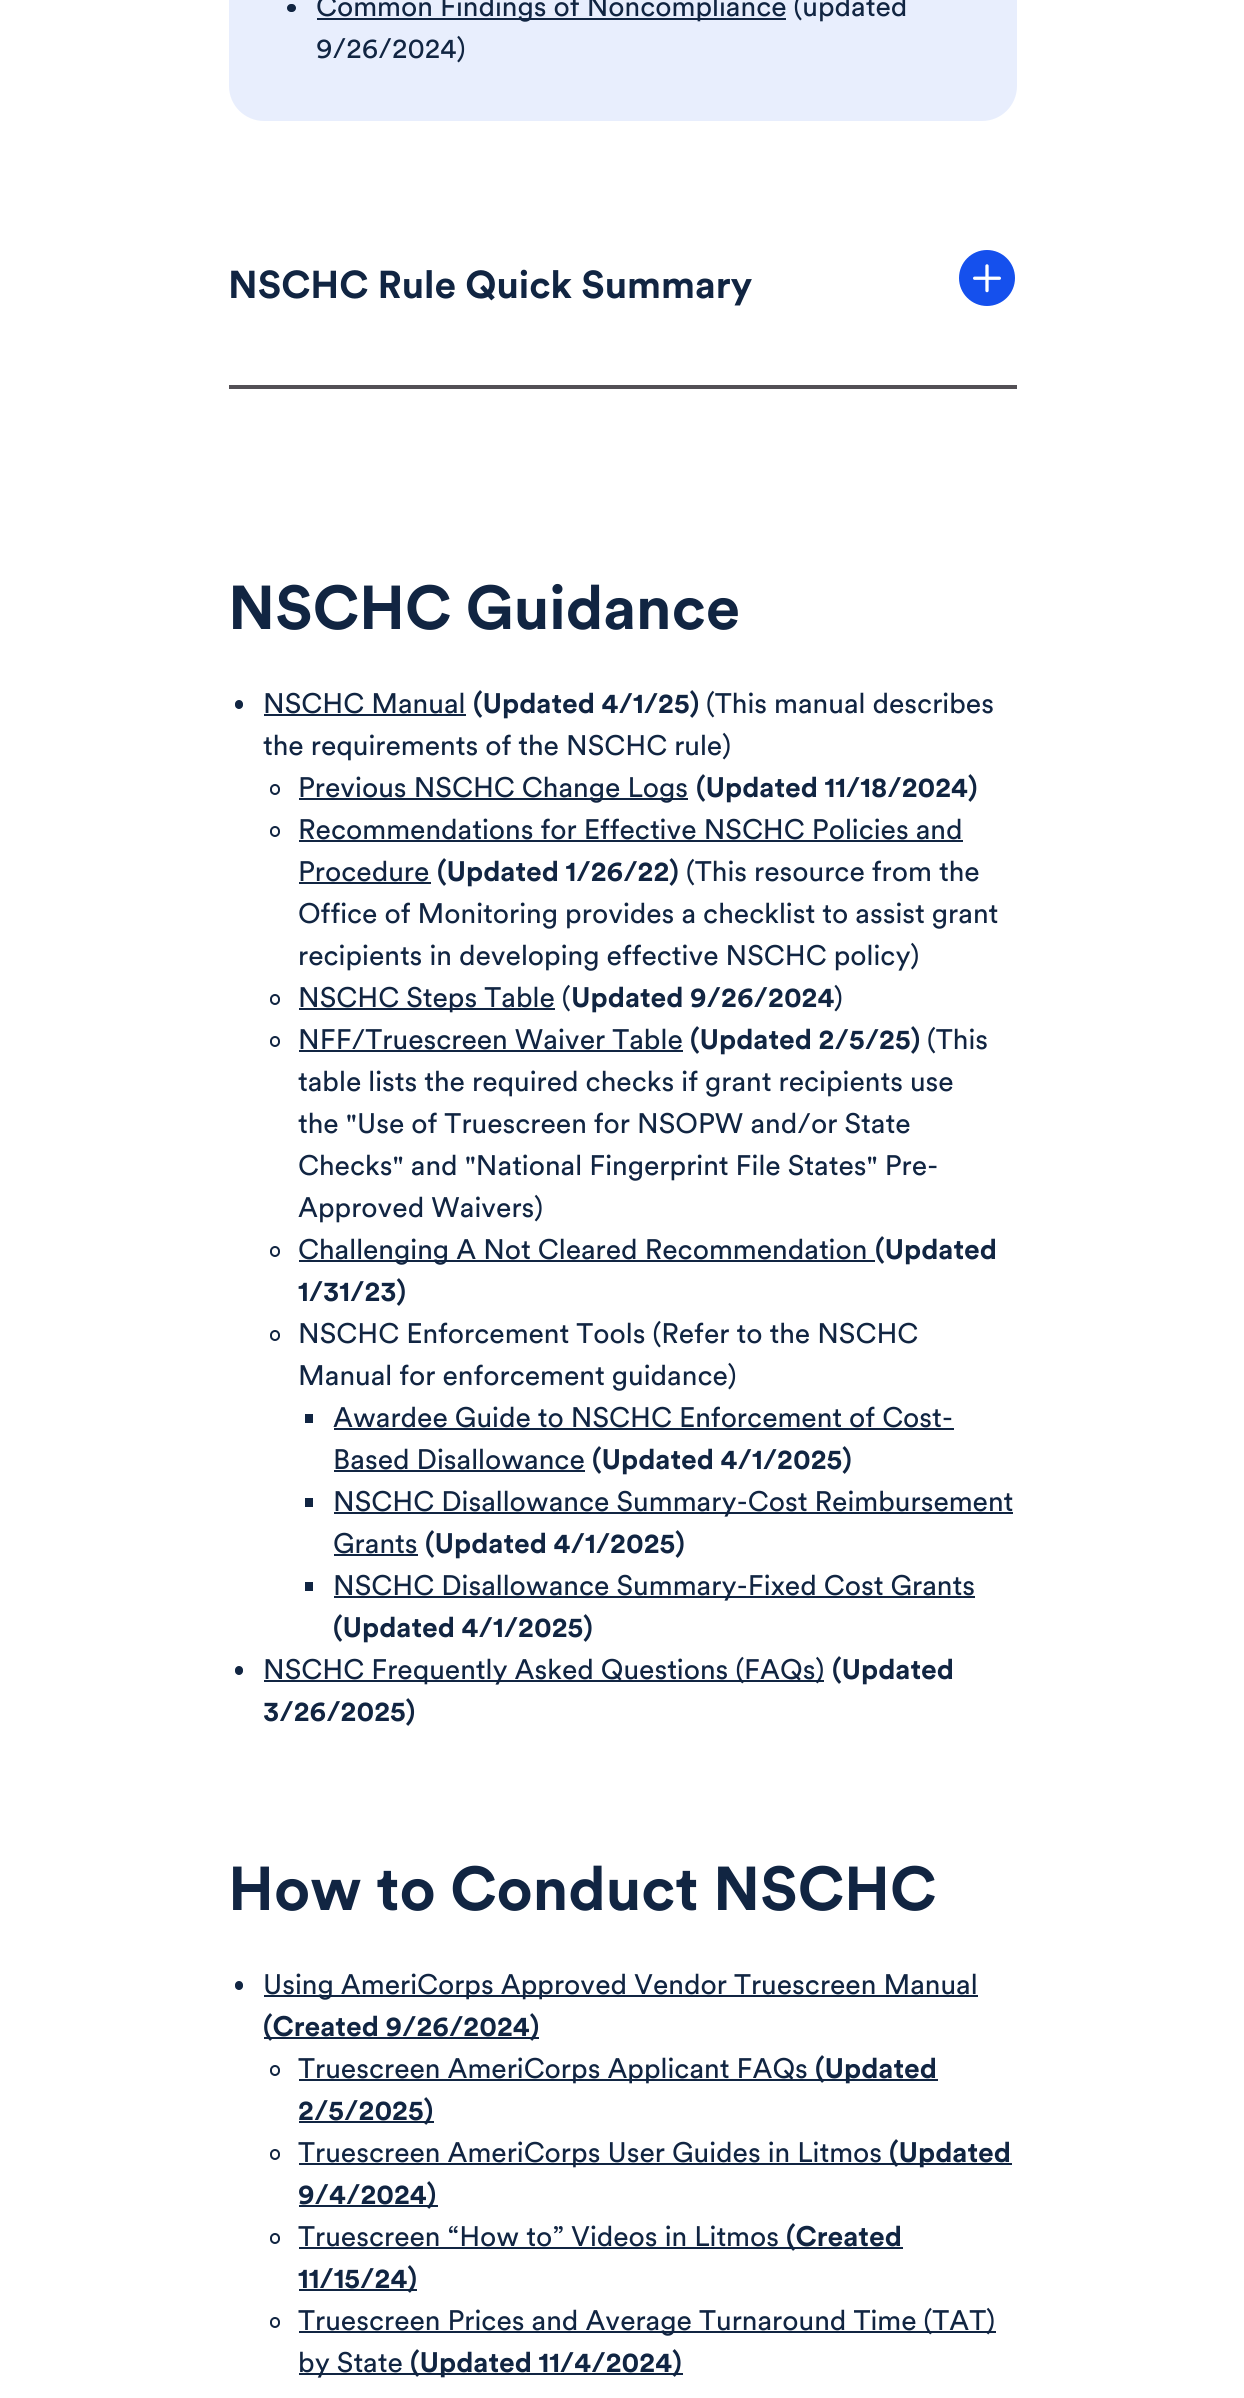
#include <cairo.h>
#include <math.h>
#include <stddef.h>

static cairo_t *ctx;

static void use_color(int r, int g, int b) {
    cairo_set_source_rgb(ctx, r / 255.0, g / 255.0, b / 255.0);
}

static void round_rect(double x, double y, double w, double h, double r) {
    cairo_new_sub_path(ctx);
    cairo_arc(ctx, x + w - r, y + h - r, r, 0, M_PI / 2);
    cairo_arc(ctx, x + r, y + h - r, r, M_PI / 2, M_PI);
    cairo_arc(ctx, x + r, y + r, r, M_PI, 1.5 * M_PI);
    cairo_arc(ctx, x + w - r, y + r, r, 1.5 * M_PI, 2 * M_PI);
    cairo_close_path(ctx);
}

static void picture(const char *path, double x, double y, double w, double h) {
    cairo_surface_t *image = cairo_image_surface_create_from_png(path);
    cairo_save(ctx);
    cairo_set_source_surface(ctx, image, x, y);
    cairo_rectangle(ctx, x, y, w, h);
    cairo_fill(ctx);
    cairo_restore(ctx);
    cairo_surface_destroy(image);
}

int main(void) {
    cairo_surface_t *surface = cairo_image_surface_create(CAIRO_FORMAT_RGB24, 1244, 2398);
    ctx = cairo_create(surface);
    cairo_font_options_t *options = cairo_font_options_create();
    cairo_font_options_set_hint_metrics(options, CAIRO_HINT_METRICS_OFF);
    cairo_font_options_set_hint_style(options, CAIRO_HINT_STYLE_NONE);
    cairo_set_font_options(ctx, options);
    cairo_set_miter_limit(ctx, 4);
    use_color(255, 255, 255);
    cairo_paint(ctx);
    use_color(232, 238, 253);
    round_rect(229, -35, 788, 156, 35);
    cairo_fill(ctx);
    use_color(17, 37, 66);
    round_rect(287, 4, 9, 8, 4);
    cairo_fill(ctx);
    cairo_rectangle(ctx, 317, 18, 469, 2);
    cairo_fill(ctx);
    cairo_select_font_face(ctx, "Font", CAIRO_FONT_SLANT_NORMAL, CAIRO_FONT_WEIGHT_NORMAL);
    cairo_set_font_size(ctx, 28);
    cairo_move_to(ctx, 316, 16);
    cairo_show_text(ctx, "Common Findings of Noncompliance (updated");
    cairo_move_to(ctx, 316, 58);
    cairo_show_text(ctx, "9/26/2024)");
    cairo_select_font_face(ctx, "Font", CAIRO_FONT_SLANT_NORMAL, CAIRO_FONT_WEIGHT_BOLD);
    cairo_set_font_size(ctx, 38.5);
    cairo_move_to(ctx, 228, 298);
    cairo_show_text(ctx, "NSCHC Rule Quick Summary");
    picture("img1.png", 959, 250, 56, 56);
    use_color(83, 80, 85);
    cairo_rectangle(ctx, 229, 385, 788, 4);
    cairo_fill(ctx);
    cairo_set_font_size(ctx, 61.25);
    use_color(17, 37, 66);
    cairo_move_to(ctx, 228, 629);
    cairo_show_text(ctx, "NSCHC Guidance");
    round_rect(235, 700, 8, 9, 4);
    cairo_fill(ctx);
    cairo_select_font_face(ctx, "Font", CAIRO_FONT_SLANT_NORMAL, CAIRO_FONT_WEIGHT_NORMAL);
    cairo_set_font_size(ctx, 28);
    cairo_move_to(ctx, 263, 713);
    cairo_show_text(ctx, "NSCHC Manual");
    cairo_rectangle(ctx, 264, 714, 202, 2);
    cairo_fill(ctx);
    cairo_select_font_face(ctx, "Font", CAIRO_FONT_SLANT_NORMAL, CAIRO_FONT_WEIGHT_BOLD);
    cairo_move_to(ctx, 473, 713);
    cairo_show_text(ctx, "(Updated 4/1/25)");
    cairo_select_font_face(ctx, "Font", CAIRO_FONT_SLANT_NORMAL, CAIRO_FONT_WEIGHT_NORMAL);
    cairo_move_to(ctx, 706, 713);
    cairo_show_text(ctx, "(This manual describes");
    cairo_move_to(ctx, 263, 755);
    cairo_show_text(ctx, "the requirements of the NSCHC rule)");
    round_rect(271, 785, 8, 9, 4);
    cairo_stroke(ctx);
    cairo_rectangle(ctx, 299, 798, 389, 2);
    cairo_fill(ctx);
    cairo_move_to(ctx, 298, 797);
    cairo_show_text(ctx, "Previous NSCHC Change Logs");
    cairo_select_font_face(ctx, "Font", CAIRO_FONT_SLANT_NORMAL, CAIRO_FONT_WEIGHT_BOLD);
    cairo_move_to(ctx, 696, 797);
    cairo_show_text(ctx, "(Updated 11/18/2024)");
    round_rect(271, 827, 8, 9, 4);
    cairo_stroke(ctx);
    cairo_select_font_face(ctx, "Font", CAIRO_FONT_SLANT_NORMAL, CAIRO_FONT_WEIGHT_NORMAL);
    cairo_move_to(ctx, 298, 839);
    cairo_show_text(ctx, "Recommendations for Effective NSCHC Policies and");
    cairo_rectangle(ctx, 299, 840, 664, 2);
    cairo_fill(ctx);
    cairo_move_to(ctx, 298, 881);
    cairo_show_text(ctx, "Procedure");
    cairo_rectangle(ctx, 299, 882, 132, 2);
    cairo_fill(ctx);
    cairo_select_font_face(ctx, "Font", CAIRO_FONT_SLANT_NORMAL, CAIRO_FONT_WEIGHT_BOLD);
    cairo_move_to(ctx, 437, 881);
    cairo_show_text(ctx, "(Updated 1/26/22)");
    cairo_select_font_face(ctx, "Font", CAIRO_FONT_SLANT_NORMAL, CAIRO_FONT_WEIGHT_NORMAL);
    cairo_move_to(ctx, 686, 881);
    cairo_show_text(ctx, "(This resource from the");
    cairo_move_to(ctx, 298, 923);
    cairo_show_text(ctx, "Office of Monitoring provides a checklist to assist grant");
    cairo_move_to(ctx, 298, 965);
    cairo_show_text(ctx, "recipients in developing effective NSCHC policy)");
    round_rect(271, 995, 8, 9, 4);
    cairo_stroke(ctx);
    cairo_rectangle(ctx, 299, 1008, 256, 2);
    cairo_fill(ctx);
    cairo_move_to(ctx, 298, 1007);
    cairo_show_text(ctx, "NSCHC Steps Table (");
    cairo_select_font_face(ctx, "Font", CAIRO_FONT_SLANT_NORMAL, CAIRO_FONT_WEIGHT_BOLD);
    cairo_move_to(ctx, 571, 1007);
    cairo_show_text(ctx, "Updated 9/26/2024");
    cairo_select_font_face(ctx, "Font", CAIRO_FONT_SLANT_NORMAL, CAIRO_FONT_WEIGHT_NORMAL);
    cairo_move_to(ctx, 834, 1007);
    cairo_show_text(ctx, ")");
    round_rect(271, 1037, 8, 9, 4);
    cairo_stroke(ctx);
    cairo_move_to(ctx, 298, 1049);
    cairo_show_text(ctx, "NFF/Truescreen Waiver Table");
    cairo_rectangle(ctx, 299, 1050, 384, 2);
    cairo_fill(ctx);
    cairo_select_font_face(ctx, "Font", CAIRO_FONT_SLANT_NORMAL, CAIRO_FONT_WEIGHT_BOLD);
    cairo_move_to(ctx, 690, 1049);
    cairo_show_text(ctx, "(Updated 2/5/25)");
    cairo_select_font_face(ctx, "Font", CAIRO_FONT_SLANT_NORMAL, CAIRO_FONT_WEIGHT_NORMAL);
    cairo_move_to(ctx, 927, 1049);
    cairo_show_text(ctx, "(This");
    cairo_move_to(ctx, 298, 1091);
    cairo_show_text(ctx, "table lists the required checks if grant recipients use");
    cairo_move_to(ctx, 298, 1133);
    cairo_show_text(ctx, "the \"Use of Truescreen for NSOPW and/or State");
    cairo_move_to(ctx, 298, 1175);
    cairo_show_text(ctx, "Checks\" and \"National Fingerprint File States\" Pre-");
    cairo_move_to(ctx, 298, 1217);
    cairo_show_text(ctx, "Approved Waivers)");
    round_rect(271, 1247, 8, 9, 4);
    cairo_stroke(ctx);
    cairo_rectangle(ctx, 299, 1260, 576, 2);
    cairo_fill(ctx);
    cairo_move_to(ctx, 298, 1259);
    cairo_show_text(ctx, "Challenging A Not Cleared Recommendation");
    cairo_select_font_face(ctx, "Font", CAIRO_FONT_SLANT_NORMAL, CAIRO_FONT_WEIGHT_BOLD);
    cairo_move_to(ctx, 875, 1259);
    cairo_show_text(ctx, "(Updated");
    cairo_move_to(ctx, 298, 1301);
    cairo_show_text(ctx, "1/31/23)");
    round_rect(271, 1331, 8, 9, 4);
    cairo_stroke(ctx);
    cairo_select_font_face(ctx, "Font", CAIRO_FONT_SLANT_NORMAL, CAIRO_FONT_WEIGHT_NORMAL);
    cairo_move_to(ctx, 298, 1343);
    cairo_show_text(ctx, "NSCHC Enforcement Tools (Refer to the NSCHC");
    cairo_move_to(ctx, 298, 1385);
    cairo_show_text(ctx, "Manual for enforcement guidance)");
    cairo_rectangle(ctx, 305, 1414, 8, 9);
    cairo_fill(ctx);
    cairo_move_to(ctx, 333, 1427);
    cairo_show_text(ctx, "Awardee Guide to NSCHC Enforcement of Cost-");
    cairo_rectangle(ctx, 334, 1428, 620, 2);
    cairo_fill(ctx);
    cairo_move_to(ctx, 333, 1469);
    cairo_show_text(ctx, "Based Disallowance");
    cairo_rectangle(ctx, 334, 1470, 251, 2);
    cairo_fill(ctx);
    cairo_select_font_face(ctx, "Font", CAIRO_FONT_SLANT_NORMAL, CAIRO_FONT_WEIGHT_BOLD);
    cairo_move_to(ctx, 592, 1469);
    cairo_show_text(ctx, "(Updated 4/1/2025)");
    cairo_rectangle(ctx, 305, 1498, 8, 9);
    cairo_fill(ctx);
    cairo_rectangle(ctx, 334, 1512, 679, 2);
    cairo_fill(ctx);
    cairo_select_font_face(ctx, "Font", CAIRO_FONT_SLANT_NORMAL, CAIRO_FONT_WEIGHT_NORMAL);
    cairo_move_to(ctx, 333, 1511);
    cairo_show_text(ctx, "NSCHC Disallowance Summary-Cost Reimbursement");
    cairo_move_to(ctx, 333, 1553);
    cairo_show_text(ctx, "Grants");
    cairo_rectangle(ctx, 334, 1554, 84, 2);
    cairo_fill(ctx);
    cairo_select_font_face(ctx, "Font", CAIRO_FONT_SLANT_NORMAL, CAIRO_FONT_WEIGHT_BOLD);
    cairo_move_to(ctx, 425, 1553);
    cairo_show_text(ctx, "(Updated 4/1/2025)");
    cairo_rectangle(ctx, 305, 1582, 8, 9);
    cairo_fill(ctx);
    cairo_rectangle(ctx, 334, 1596, 641, 2);
    cairo_fill(ctx);
    cairo_select_font_face(ctx, "Font", CAIRO_FONT_SLANT_NORMAL, CAIRO_FONT_WEIGHT_NORMAL);
    cairo_move_to(ctx, 333, 1595);
    cairo_show_text(ctx, "NSCHC Disallowance Summary-Fixed Cost Grants");
    cairo_select_font_face(ctx, "Font", CAIRO_FONT_SLANT_NORMAL, CAIRO_FONT_WEIGHT_BOLD);
    cairo_move_to(ctx, 333, 1637);
    cairo_show_text(ctx, "(Updated 4/1/2025)");
    round_rect(235, 1666, 8, 9, 4);
    cairo_fill(ctx);
    cairo_rectangle(ctx, 264, 1680, 560, 2);
    cairo_fill(ctx);
    cairo_select_font_face(ctx, "Font", CAIRO_FONT_SLANT_NORMAL, CAIRO_FONT_WEIGHT_NORMAL);
    cairo_move_to(ctx, 263, 1679);
    cairo_show_text(ctx, "NSCHC Frequently Asked Questions (FAQs)");
    cairo_select_font_face(ctx, "Font", CAIRO_FONT_SLANT_NORMAL, CAIRO_FONT_WEIGHT_BOLD);
    cairo_move_to(ctx, 832, 1679);
    cairo_show_text(ctx, "(Updated");
    cairo_move_to(ctx, 263, 1721);
    cairo_show_text(ctx, "3/26/2025)");
    cairo_set_font_size(ctx, 61.25);
    cairo_move_to(ctx, 228, 1910);
    cairo_show_text(ctx, "How to Conduct NSCHC");
    round_rect(235, 1981, 8, 9, 4);
    cairo_fill(ctx);
    cairo_rectangle(ctx, 264, 1995, 714, 2);
    cairo_fill(ctx);
    cairo_select_font_face(ctx, "Font", CAIRO_FONT_SLANT_NORMAL, CAIRO_FONT_WEIGHT_NORMAL);
    cairo_set_font_size(ctx, 28);
    cairo_move_to(ctx, 263, 1994);
    cairo_show_text(ctx, "Using AmeriCorps Approved Vendor Truescreen Manual");
    cairo_rectangle(ctx, 264, 2037, 275, 2);
    cairo_fill(ctx);
    cairo_select_font_face(ctx, "Font", CAIRO_FONT_SLANT_NORMAL, CAIRO_FONT_WEIGHT_BOLD);
    cairo_move_to(ctx, 263, 2036);
    cairo_show_text(ctx, "(Created 9/26/2024)");
    round_rect(271, 2066, 8, 9, 4);
    cairo_stroke(ctx);
    cairo_rectangle(ctx, 299, 2079, 639, 2);
    cairo_fill(ctx);
    cairo_select_font_face(ctx, "Font", CAIRO_FONT_SLANT_NORMAL, CAIRO_FONT_WEIGHT_NORMAL);
    cairo_move_to(ctx, 298, 2078);
    cairo_show_text(ctx, "Truescreen AmeriCorps Applicant FAQs");
    cairo_select_font_face(ctx, "Font", CAIRO_FONT_SLANT_NORMAL, CAIRO_FONT_WEIGHT_BOLD);
    cairo_move_to(ctx, 815, 2078);
    cairo_show_text(ctx, "(Updated");
    cairo_rectangle(ctx, 299, 2121, 135, 2);
    cairo_fill(ctx);
    cairo_move_to(ctx, 298, 2120);
    cairo_show_text(ctx, "2/5/2025)");
    round_rect(271, 2150, 8, 9, 4);
    cairo_stroke(ctx);
    cairo_rectangle(ctx, 299, 2163, 713, 2);
    cairo_fill(ctx);
    cairo_select_font_face(ctx, "Font", CAIRO_FONT_SLANT_NORMAL, CAIRO_FONT_WEIGHT_NORMAL);
    cairo_move_to(ctx, 298, 2162);
    cairo_show_text(ctx, "Truescreen AmeriCorps User Guides in Litmos");
    cairo_select_font_face(ctx, "Font", CAIRO_FONT_SLANT_NORMAL, CAIRO_FONT_WEIGHT_BOLD);
    cairo_move_to(ctx, 889, 2162);
    cairo_show_text(ctx, "(Updated");
    cairo_rectangle(ctx, 299, 2205, 139, 2);
    cairo_fill(ctx);
    cairo_move_to(ctx, 298, 2204);
    cairo_show_text(ctx, "9/4/2024)");
    round_rect(271, 2234, 8, 9, 4);
    cairo_stroke(ctx);
    cairo_select_font_face(ctx, "Font", CAIRO_FONT_SLANT_NORMAL, CAIRO_FONT_WEIGHT_NORMAL);
    cairo_move_to(ctx, 298, 2246);
    cairo_show_text(ctx, "Truescreen “How to” Videos in Litmos");
    cairo_rectangle(ctx, 299, 2247, 604, 2);
    cairo_fill(ctx);
    cairo_select_font_face(ctx, "Font", CAIRO_FONT_SLANT_NORMAL, CAIRO_FONT_WEIGHT_BOLD);
    cairo_move_to(ctx, 786, 2246);
    cairo_show_text(ctx, "(Created");
    cairo_rectangle(ctx, 299, 2289, 118, 2);
    cairo_fill(ctx);
    cairo_move_to(ctx, 298, 2288);
    cairo_show_text(ctx, "11/15/24)");
    round_rect(271, 2318, 8, 9, 4);
    cairo_stroke(ctx);
    cairo_rectangle(ctx, 299, 2331, 697, 2);
    cairo_fill(ctx);
    cairo_select_font_face(ctx, "Font", CAIRO_FONT_SLANT_NORMAL, CAIRO_FONT_WEIGHT_NORMAL);
    cairo_move_to(ctx, 298, 2330);
    cairo_show_text(ctx, "Truescreen Prices and Average Turnaround Time (TAT)");
    cairo_rectangle(ctx, 299, 2373, 384, 2);
    cairo_fill(ctx);
    cairo_move_to(ctx, 298, 2372);
    cairo_show_text(ctx, "by State");
    cairo_select_font_face(ctx, "Font", CAIRO_FONT_SLANT_NORMAL, CAIRO_FONT_WEIGHT_BOLD);
    cairo_move_to(ctx, 410, 2372);
    cairo_show_text(ctx, "(Updated 11/4/2024)");
    cairo_surface_write_to_png(surface, "result.png");
    cairo_font_options_destroy(options);
    cairo_destroy(ctx);
    cairo_surface_destroy(surface);
    return 0;
}
